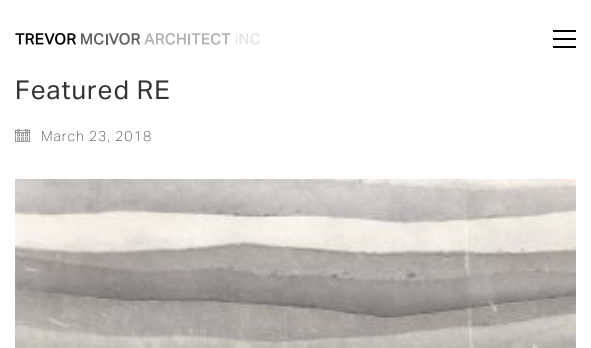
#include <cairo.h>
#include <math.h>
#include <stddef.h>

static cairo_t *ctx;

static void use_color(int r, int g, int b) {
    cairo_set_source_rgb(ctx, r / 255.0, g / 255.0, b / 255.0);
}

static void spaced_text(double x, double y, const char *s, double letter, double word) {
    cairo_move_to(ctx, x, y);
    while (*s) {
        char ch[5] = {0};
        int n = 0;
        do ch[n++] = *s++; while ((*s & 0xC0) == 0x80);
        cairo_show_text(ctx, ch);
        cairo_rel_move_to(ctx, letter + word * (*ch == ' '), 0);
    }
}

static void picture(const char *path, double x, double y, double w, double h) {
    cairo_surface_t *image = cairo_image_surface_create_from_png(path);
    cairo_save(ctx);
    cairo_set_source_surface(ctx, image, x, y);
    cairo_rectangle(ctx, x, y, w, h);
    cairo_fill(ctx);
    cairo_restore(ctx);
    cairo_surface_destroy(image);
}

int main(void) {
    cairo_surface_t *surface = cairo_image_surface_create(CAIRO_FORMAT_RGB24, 591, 348);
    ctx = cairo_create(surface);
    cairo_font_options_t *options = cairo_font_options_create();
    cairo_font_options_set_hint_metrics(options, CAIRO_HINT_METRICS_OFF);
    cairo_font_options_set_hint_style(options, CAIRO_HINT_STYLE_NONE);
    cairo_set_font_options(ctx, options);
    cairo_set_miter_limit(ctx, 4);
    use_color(255, 255, 255);
    cairo_paint(ctx);
    picture("img1.png", 15, 33, 245, 12);
    use_color(0, 0, 0);
    cairo_rectangle(ctx, 553, 30, 23, 2);
    cairo_fill(ctx);
    cairo_rectangle(ctx, 553, 38, 23, 2);
    cairo_fill(ctx);
    cairo_rectangle(ctx, 553, 46, 23, 2);
    cairo_fill(ctx);
    cairo_select_font_face(ctx, "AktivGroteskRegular", CAIRO_FONT_SLANT_NORMAL, CAIRO_FONT_WEIGHT_NORMAL);
    cairo_set_font_size(ctx, 26);
    use_color(51, 51, 51);
    spaced_text(15, 99, "Featured RE", 1, 0);
    picture("img2.png", 15, 129, 15, 13);
    cairo_select_font_face(ctx, "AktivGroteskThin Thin", CAIRO_FONT_SLANT_NORMAL, CAIRO_FONT_WEIGHT_NORMAL);
    cairo_set_font_size(ctx, 14);
    spaced_text(41, 141, "March 23, 2018", 1, 0);
    picture("img3.png", 15, 179, 561, 169);
    cairo_surface_write_to_png(surface, "result.png");
    cairo_font_options_destroy(options);
    cairo_destroy(ctx);
    cairo_surface_destroy(surface);
    return 0;
}
